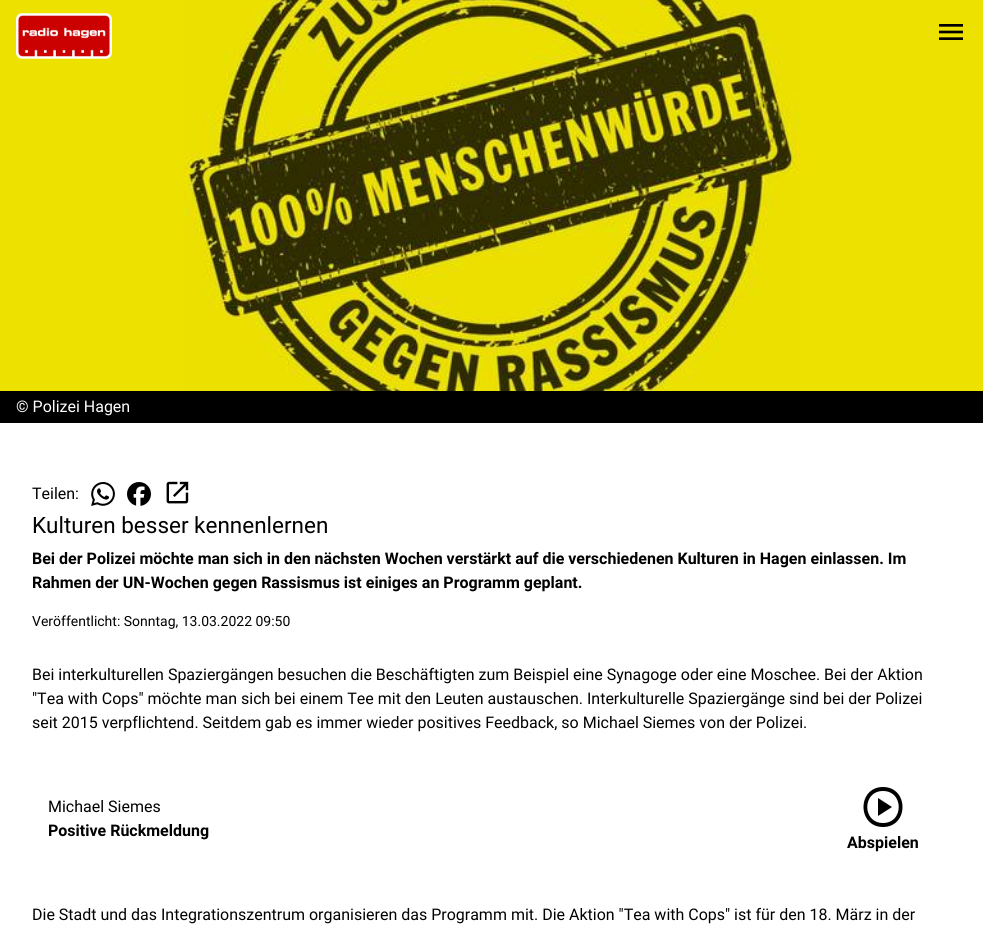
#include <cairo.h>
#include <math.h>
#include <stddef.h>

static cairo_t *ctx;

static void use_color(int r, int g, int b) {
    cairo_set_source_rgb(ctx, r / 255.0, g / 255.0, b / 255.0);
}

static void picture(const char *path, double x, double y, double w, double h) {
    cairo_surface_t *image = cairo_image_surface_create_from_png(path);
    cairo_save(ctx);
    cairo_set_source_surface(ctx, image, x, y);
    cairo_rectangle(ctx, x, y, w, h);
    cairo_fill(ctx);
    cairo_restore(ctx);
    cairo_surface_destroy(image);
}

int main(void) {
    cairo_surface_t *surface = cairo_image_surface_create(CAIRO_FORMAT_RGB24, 983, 925);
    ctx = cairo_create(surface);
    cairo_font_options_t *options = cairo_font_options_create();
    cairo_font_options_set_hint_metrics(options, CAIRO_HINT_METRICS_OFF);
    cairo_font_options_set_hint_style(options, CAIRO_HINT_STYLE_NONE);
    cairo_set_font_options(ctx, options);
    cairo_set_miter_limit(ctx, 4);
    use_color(255, 255, 255);
    cairo_paint(ctx);
    picture("img3.png", 0, 0, 983, 391);
    picture("img1.png", 16, 13, 96, 46);
    picture("img2.png", 939, 24, 24, 16);
    use_color(0, 0, 0);
    cairo_rectangle(ctx, 0, 391, 983, 32);
    cairo_fill(ctx);
    cairo_select_font_face(ctx, "Roboto", CAIRO_FONT_SLANT_NORMAL, CAIRO_FONT_WEIGHT_NORMAL);
    cairo_set_font_size(ctx, 16);
    use_color(255, 255, 255);
    cairo_move_to(ctx, 16, 412);
    cairo_show_text(ctx, "© Polizei Hagen");
    use_color(0, 0, 0);
    cairo_move_to(ctx, 32, 499);
    cairo_show_text(ctx, "Teilen:");
    picture("img4.png", 91, 482, 24, 24);
    picture("img5.png", 127, 482, 24, 24);
    picture("img6.png", 166, 481, 23, 23);
    cairo_set_font_size(ctx, 22.5);
    cairo_move_to(ctx, 32, 533);
    cairo_show_text(ctx, "Kulturen besser kennenlernen");
    cairo_select_font_face(ctx, "Roboto", CAIRO_FONT_SLANT_NORMAL, CAIRO_FONT_WEIGHT_BOLD);
    cairo_set_font_size(ctx, 16);
    cairo_move_to(ctx, 32, 564);
    cairo_show_text(ctx, "Bei der Polizei möchte man sich in den nächsten Wochen verstärkt auf die verschiedenen Kulturen in Hagen einlassen. Im");
    cairo_move_to(ctx, 32, 588);
    cairo_show_text(ctx, "Rahmen der UN-Wochen gegen Rassismus ist einiges an Programm geplant.");
    cairo_select_font_face(ctx, "Roboto", CAIRO_FONT_SLANT_NORMAL, CAIRO_FONT_WEIGHT_NORMAL);
    cairo_set_font_size(ctx, 14);
    cairo_move_to(ctx, 32, 626);
    cairo_show_text(ctx, "Veröffentlicht: Sonntag, 13.03.2022 09:50");
    cairo_set_font_size(ctx, 16);
    cairo_move_to(ctx, 32, 680);
    cairo_show_text(ctx, "Bei interkulturellen Spaziergängen besuchen die Beschäftigten zum Beispiel eine Synagoge oder eine Moschee. Bei der Aktion");
    cairo_move_to(ctx, 32, 704);
    cairo_show_text(ctx, "\"Tea with Cops\" möchte man sich bei einem Tee mit den Leuten austauschen. Interkulturelle Spaziergänge sind bei der Polizei");
    cairo_move_to(ctx, 32, 728);
    cairo_show_text(ctx, "seit 2015 verpflichtend. Seitdem gab es immer wieder positives Feedback, so Michael Siemes von der Polizei.");
    cairo_move_to(ctx, 48, 812);
    cairo_show_text(ctx, "Michael Siemes");
    cairo_select_font_face(ctx, "Roboto", CAIRO_FONT_SLANT_NORMAL, CAIRO_FONT_WEIGHT_BOLD);
    cairo_move_to(ctx, 48, 836);
    cairo_show_text(ctx, "Positive Rückmeldung");
    cairo_new_path(ctx);
    cairo_move_to(ctx, 878, 816);
    cairo_line_to(ctx, 892, 807);
    cairo_line_to(ctx, 878, 798);
    cairo_close_path(ctx);
    cairo_move_to(ctx, 883, 827);
    cairo_curve_to(ctx, 857, 827, 857, 787, 883, 787);
    cairo_curve_to(ctx, 909, 787, 909, 827, 883, 827);
    cairo_close_path(ctx);
    cairo_move_to(ctx, 883, 823);
    cairo_curve_to(ctx, 904, 823, 904, 791, 883, 791);
    cairo_curve_to(ctx, 862, 791, 862, 823, 883, 823);
    cairo_close_path(ctx);
    cairo_move_to(ctx, 883, 807);
    cairo_close_path(ctx);
    cairo_fill(ctx);
    cairo_move_to(ctx, 847, 848);
    cairo_show_text(ctx, "Abspielen");
    cairo_select_font_face(ctx, "Roboto", CAIRO_FONT_SLANT_NORMAL, CAIRO_FONT_WEIGHT_NORMAL);
    cairo_move_to(ctx, 32, 920);
    cairo_show_text(ctx, "Die Stadt und das Integrationszentrum organisieren das Programm mit. Die Aktion \"Tea with Cops\" ist für den 18. März in der");
    cairo_surface_write_to_png(surface, "result.png");
    cairo_font_options_destroy(options);
    cairo_destroy(ctx);
    cairo_surface_destroy(surface);
    return 0;
}
